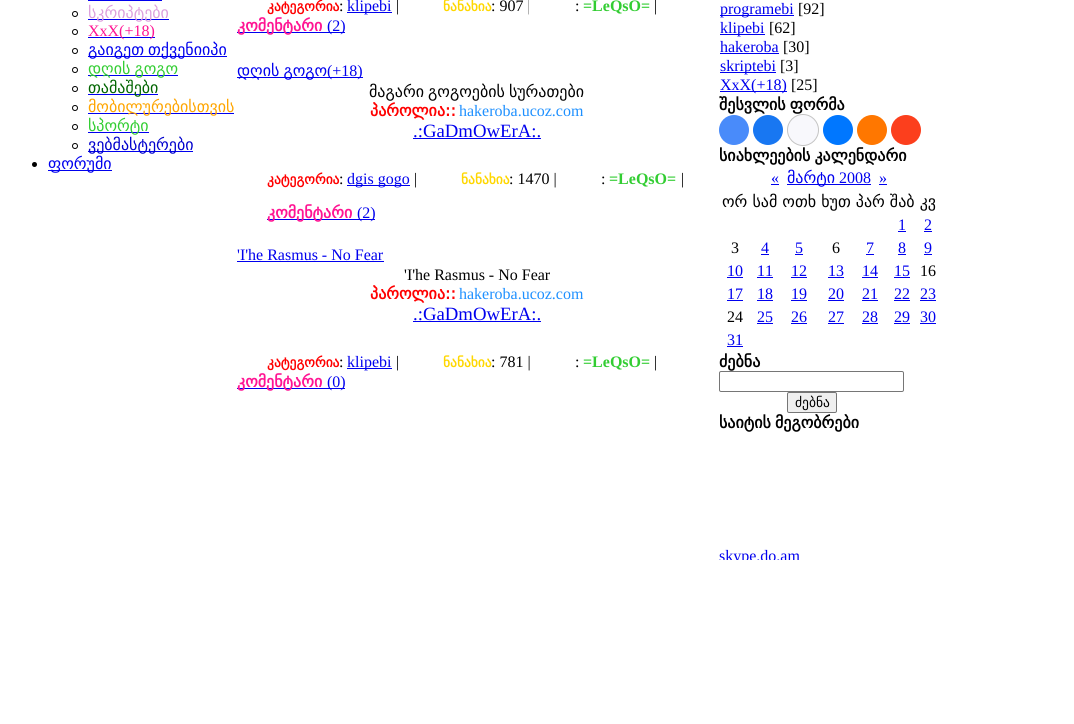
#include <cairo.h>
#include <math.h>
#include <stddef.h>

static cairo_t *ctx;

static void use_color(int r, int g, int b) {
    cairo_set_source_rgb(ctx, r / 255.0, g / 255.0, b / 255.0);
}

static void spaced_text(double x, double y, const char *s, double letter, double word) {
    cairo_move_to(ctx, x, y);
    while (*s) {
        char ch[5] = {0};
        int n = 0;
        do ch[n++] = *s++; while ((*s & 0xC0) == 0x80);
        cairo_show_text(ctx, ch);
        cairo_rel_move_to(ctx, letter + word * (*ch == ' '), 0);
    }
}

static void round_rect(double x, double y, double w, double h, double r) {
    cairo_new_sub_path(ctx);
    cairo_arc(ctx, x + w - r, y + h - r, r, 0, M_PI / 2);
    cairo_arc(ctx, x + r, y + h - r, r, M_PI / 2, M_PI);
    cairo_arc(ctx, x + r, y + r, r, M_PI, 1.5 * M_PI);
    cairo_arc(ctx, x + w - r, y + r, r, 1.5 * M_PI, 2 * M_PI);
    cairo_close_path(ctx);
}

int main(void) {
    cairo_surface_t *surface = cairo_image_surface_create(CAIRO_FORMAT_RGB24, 1074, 724);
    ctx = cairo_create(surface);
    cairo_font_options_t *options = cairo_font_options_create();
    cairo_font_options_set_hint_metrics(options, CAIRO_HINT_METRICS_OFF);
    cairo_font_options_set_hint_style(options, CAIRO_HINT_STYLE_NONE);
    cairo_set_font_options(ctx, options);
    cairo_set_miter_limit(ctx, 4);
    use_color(255, 255, 255);
    cairo_paint(ctx);
    use_color(0, 0, 238);
    cairo_rectangle(ctx, 88, 0, 74, 1);
    cairo_fill(ctx);
    cairo_arc(ctx, 75, 14, 2.5, 0, 2 * M_PI);
    use_color(0, 0, 0);
    cairo_set_line_width(ctx, 1);
    cairo_stroke(ctx);
    use_color(0, 0, 238);
    cairo_rectangle(ctx, 88, 19, 81, 1);
    cairo_fill(ctx);
    cairo_select_font_face(ctx, "DejaVu Sans", CAIRO_FONT_SLANT_NORMAL, CAIRO_FONT_WEIGHT_NORMAL);
    cairo_set_font_size(ctx, 16);
    use_color(221, 160, 221);
    cairo_move_to(ctx, 88, 18);
    cairo_show_text(ctx, "სკრიპტები");
    cairo_new_path(ctx);
    cairo_arc(ctx, 75, 32, 2.5, 0, 2 * M_PI);
    use_color(0, 0, 0);
    cairo_stroke(ctx);
    use_color(0, 0, 238);
    cairo_rectangle(ctx, 88, 37, 67, 1);
    cairo_fill(ctx);
    cairo_select_font_face(ctx, "Liberation Serif", CAIRO_FONT_SLANT_NORMAL, CAIRO_FONT_WEIGHT_NORMAL);
    use_color(255, 20, 147);
    cairo_move_to(ctx, 88, 36);
    cairo_show_text(ctx, "XxX(+18)");
    cairo_new_path(ctx);
    cairo_arc(ctx, 75, 51, 2.5, 0, 2 * M_PI);
    use_color(0, 0, 0);
    cairo_stroke(ctx);
    use_color(0, 0, 238);
    cairo_rectangle(ctx, 88, 56, 139, 1);
    cairo_fill(ctx);
    cairo_select_font_face(ctx, "DejaVu Sans", CAIRO_FONT_SLANT_NORMAL, CAIRO_FONT_WEIGHT_NORMAL);
    spaced_text(88, 55, "გაიგეთ თქვენიიპი", 0, -1);
    cairo_new_path(ctx);
    cairo_arc(ctx, 75, 70, 2.5, 0, 2 * M_PI);
    use_color(0, 0, 0);
    cairo_stroke(ctx);
    use_color(0, 0, 238);
    cairo_rectangle(ctx, 88, 75, 90, 1);
    cairo_fill(ctx);
    use_color(50, 205, 50);
    spaced_text(88, 74, "დღის გოგო", 0, -1);
    cairo_new_path(ctx);
    cairo_arc(ctx, 75, 89, 2.5, 0, 2 * M_PI);
    use_color(0, 0, 0);
    cairo_stroke(ctx);
    use_color(0, 0, 238);
    cairo_rectangle(ctx, 88, 94, 70, 1);
    cairo_fill(ctx);
    use_color(0, 100, 0);
    cairo_move_to(ctx, 88, 93);
    cairo_show_text(ctx, "თამაშები");
    cairo_new_path(ctx);
    cairo_arc(ctx, 75, 108, 2.5, 0, 2 * M_PI);
    use_color(0, 0, 0);
    cairo_stroke(ctx);
    use_color(0, 0, 238);
    cairo_rectangle(ctx, 88, 113, 146, 1);
    cairo_fill(ctx);
    use_color(255, 165, 0);
    cairo_move_to(ctx, 88, 112);
    cairo_show_text(ctx, "მობილურებისთვის");
    cairo_new_path(ctx);
    cairo_arc(ctx, 75, 127, 2.5, 0, 2 * M_PI);
    use_color(0, 0, 0);
    cairo_stroke(ctx);
    use_color(0, 0, 238);
    cairo_rectangle(ctx, 88, 132, 61, 1);
    cairo_fill(ctx);
    use_color(50, 205, 50);
    cairo_move_to(ctx, 88, 131);
    cairo_show_text(ctx, "სპორტი");
    cairo_new_path(ctx);
    cairo_arc(ctx, 75, 146, 2.5, 0, 2 * M_PI);
    use_color(0, 0, 0);
    cairo_stroke(ctx);
    use_color(0, 0, 238);
    cairo_rectangle(ctx, 88, 151, 105, 1);
    cairo_fill(ctx);
    use_color(0, 0, 205);
    cairo_move_to(ctx, 88, 150);
    cairo_show_text(ctx, "ვებმასტერები");
    use_color(0, 0, 0);
    cairo_new_path(ctx);
    cairo_arc(ctx, 34.5, 164.5, 2.5, 0, 2 * M_PI);
    cairo_fill(ctx);
    use_color(0, 0, 238);
    cairo_rectangle(ctx, 48, 170, 64, 1);
    cairo_fill(ctx);
    cairo_move_to(ctx, 48, 169);
    cairo_show_text(ctx, "ფორუმი");
    cairo_select_font_face(ctx, "DejaVu Sans", CAIRO_FONT_SLANT_NORMAL, CAIRO_FONT_WEIGHT_BOLD);
    cairo_set_font_size(ctx, 13.5);
    use_color(255, 0, 0);
    cairo_move_to(ctx, 267, 11);
    cairo_show_text(ctx, "კატეგორია");
    cairo_select_font_face(ctx, "Liberation Serif", CAIRO_FONT_SLANT_NORMAL, CAIRO_FONT_WEIGHT_NORMAL);
    cairo_set_font_size(ctx, 16);
    use_color(0, 0, 0);
    cairo_move_to(ctx, 339, 11);
    cairo_show_text(ctx, ":");
    use_color(0, 0, 238);
    cairo_rectangle(ctx, 347, 12, 45, 1);
    cairo_fill(ctx);
    cairo_move_to(ctx, 347, 11);
    cairo_show_text(ctx, "klipebi");
    use_color(0, 0, 0);
    cairo_move_to(ctx, 396, 11);
    cairo_show_text(ctx, "|");
    cairo_select_font_face(ctx, "DejaVu Sans", CAIRO_FONT_SLANT_NORMAL, CAIRO_FONT_WEIGHT_BOLD);
    cairo_set_font_size(ctx, 13.5);
    use_color(255, 215, 0);
    cairo_move_to(ctx, 443, 11);
    cairo_show_text(ctx, "ნანახია");
    cairo_select_font_face(ctx, "Liberation Serif", CAIRO_FONT_SLANT_NORMAL, CAIRO_FONT_WEIGHT_NORMAL);
    cairo_set_font_size(ctx, 16);
    use_color(0, 0, 0);
    cairo_move_to(ctx, 491, 11);
    cairo_show_text(ctx, ": 907 |");
    cairo_move_to(ctx, 575, 11);
    cairo_show_text(ctx, ":");
    cairo_select_font_face(ctx, "Liberation Serif", CAIRO_FONT_SLANT_NORMAL, CAIRO_FONT_WEIGHT_BOLD);
    use_color(50, 205, 50);
    cairo_move_to(ctx, 583, 11);
    cairo_show_text(ctx, "=LeQsO=");
    cairo_select_font_face(ctx, "Liberation Serif", CAIRO_FONT_SLANT_NORMAL, CAIRO_FONT_WEIGHT_NORMAL);
    use_color(0, 0, 0);
    cairo_move_to(ctx, 654, 11);
    cairo_show_text(ctx, "|");
    use_color(0, 0, 238);
    cairo_rectangle(ctx, 237, 32, 108, 1);
    cairo_fill(ctx);
    cairo_select_font_face(ctx, "DejaVu Sans", CAIRO_FONT_SLANT_NORMAL, CAIRO_FONT_WEIGHT_BOLD);
    use_color(255, 20, 147);
    cairo_move_to(ctx, 237, 31);
    cairo_show_text(ctx, "კომენტარი");
    cairo_select_font_face(ctx, "Liberation Serif", CAIRO_FONT_SLANT_NORMAL, CAIRO_FONT_WEIGHT_NORMAL);
    use_color(0, 0, 238);
    cairo_move_to(ctx, 327, 31);
    cairo_show_text(ctx, "(2)");
    cairo_rectangle(ctx, 237, 77, 126, 1);
    cairo_fill(ctx);
    cairo_select_font_face(ctx, "DejaVu Sans", CAIRO_FONT_SLANT_NORMAL, CAIRO_FONT_WEIGHT_NORMAL);
    spaced_text(237, 76, "დღის გოგო", 0, -1);
    cairo_select_font_face(ctx, "Liberation Serif", CAIRO_FONT_SLANT_NORMAL, CAIRO_FONT_WEIGHT_NORMAL);
    cairo_move_to(ctx, 327, 76);
    cairo_show_text(ctx, "(+18)");
    cairo_select_font_face(ctx, "DejaVu Sans", CAIRO_FONT_SLANT_NORMAL, CAIRO_FONT_WEIGHT_NORMAL);
    use_color(0, 0, 0);
    spaced_text(369, 97, "მაგარი გოგოების სურათები", 0, -1);
    cairo_select_font_face(ctx, "DejaVu Sans", CAIRO_FONT_SLANT_NORMAL, CAIRO_FONT_WEIGHT_BOLD);
    use_color(255, 0, 0);
    cairo_move_to(ctx, 370, 116);
    cairo_show_text(ctx, "პაროლია::");
    cairo_select_font_face(ctx, "Liberation Serif", CAIRO_FONT_SLANT_NORMAL, CAIRO_FONT_WEIGHT_NORMAL);
    use_color(30, 144, 255);
    cairo_move_to(ctx, 459, 116);
    cairo_show_text(ctx, "hakeroba.ucoz.com");
    cairo_set_font_size(ctx, 18.75);
    use_color(0, 0, 238);
    cairo_move_to(ctx, 413, 137);
    cairo_show_text(ctx, ".:GaDmOwErA:.");
    cairo_rectangle(ctx, 413, 138, 128, 1);
    cairo_fill(ctx);
    cairo_select_font_face(ctx, "DejaVu Sans", CAIRO_FONT_SLANT_NORMAL, CAIRO_FONT_WEIGHT_BOLD);
    cairo_set_font_size(ctx, 13.5);
    use_color(255, 0, 0);
    cairo_move_to(ctx, 267, 184);
    cairo_show_text(ctx, "კატეგორია");
    cairo_select_font_face(ctx, "Liberation Serif", CAIRO_FONT_SLANT_NORMAL, CAIRO_FONT_WEIGHT_NORMAL);
    cairo_set_font_size(ctx, 16);
    use_color(0, 0, 0);
    cairo_move_to(ctx, 339, 184);
    cairo_show_text(ctx, ":");
    use_color(0, 0, 238);
    cairo_rectangle(ctx, 347, 185, 63, 1);
    cairo_fill(ctx);
    cairo_move_to(ctx, 347, 184);
    cairo_show_text(ctx, "dgis gogo");
    use_color(0, 0, 0);
    cairo_move_to(ctx, 414, 184);
    cairo_show_text(ctx, "|");
    cairo_select_font_face(ctx, "DejaVu Sans", CAIRO_FONT_SLANT_NORMAL, CAIRO_FONT_WEIGHT_BOLD);
    cairo_set_font_size(ctx, 13.5);
    use_color(255, 215, 0);
    cairo_move_to(ctx, 461, 184);
    cairo_show_text(ctx, "ნანახია");
    cairo_select_font_face(ctx, "Liberation Serif", CAIRO_FONT_SLANT_NORMAL, CAIRO_FONT_WEIGHT_NORMAL);
    cairo_set_font_size(ctx, 16);
    use_color(0, 0, 0);
    cairo_move_to(ctx, 509, 184);
    cairo_show_text(ctx, ": 1470 |");
    cairo_move_to(ctx, 601, 184);
    cairo_show_text(ctx, ":");
    cairo_select_font_face(ctx, "Liberation Serif", CAIRO_FONT_SLANT_NORMAL, CAIRO_FONT_WEIGHT_BOLD);
    use_color(50, 205, 50);
    cairo_move_to(ctx, 609, 184);
    cairo_show_text(ctx, "=LeQsO=");
    cairo_select_font_face(ctx, "Liberation Serif", CAIRO_FONT_SLANT_NORMAL, CAIRO_FONT_WEIGHT_NORMAL);
    use_color(0, 0, 0);
    cairo_move_to(ctx, 681, 184);
    cairo_show_text(ctx, "|");
    use_color(0, 0, 238);
    cairo_rectangle(ctx, 267, 219, 108, 1);
    cairo_fill(ctx);
    cairo_select_font_face(ctx, "DejaVu Sans", CAIRO_FONT_SLANT_NORMAL, CAIRO_FONT_WEIGHT_BOLD);
    use_color(255, 20, 147);
    cairo_move_to(ctx, 267, 218);
    cairo_show_text(ctx, "კომენტარი");
    cairo_select_font_face(ctx, "Liberation Serif", CAIRO_FONT_SLANT_NORMAL, CAIRO_FONT_WEIGHT_NORMAL);
    use_color(0, 0, 238);
    cairo_move_to(ctx, 357, 218);
    cairo_show_text(ctx, "(2)");
    cairo_move_to(ctx, 237, 260);
    cairo_show_text(ctx, "'I'he Rasmus - No Fear");
    cairo_rectangle(ctx, 237, 261, 147, 1);
    cairo_fill(ctx);
    use_color(0, 0, 0);
    cairo_move_to(ctx, 404, 280);
    cairo_show_text(ctx, "'I'he Rasmus - No Fear");
    cairo_select_font_face(ctx, "DejaVu Sans", CAIRO_FONT_SLANT_NORMAL, CAIRO_FONT_WEIGHT_BOLD);
    use_color(255, 0, 0);
    cairo_move_to(ctx, 370, 299);
    cairo_show_text(ctx, "პაროლია::");
    cairo_select_font_face(ctx, "Liberation Serif", CAIRO_FONT_SLANT_NORMAL, CAIRO_FONT_WEIGHT_NORMAL);
    use_color(30, 144, 255);
    cairo_move_to(ctx, 459, 299);
    cairo_show_text(ctx, "hakeroba.ucoz.com");
    cairo_set_font_size(ctx, 18.75);
    use_color(0, 0, 238);
    cairo_move_to(ctx, 413, 320);
    cairo_show_text(ctx, ".:GaDmOwErA:.");
    cairo_rectangle(ctx, 413, 321, 128, 1);
    cairo_fill(ctx);
    cairo_select_font_face(ctx, "DejaVu Sans", CAIRO_FONT_SLANT_NORMAL, CAIRO_FONT_WEIGHT_BOLD);
    cairo_set_font_size(ctx, 13.5);
    use_color(255, 0, 0);
    cairo_move_to(ctx, 267, 367);
    cairo_show_text(ctx, "კატეგორია");
    cairo_select_font_face(ctx, "Liberation Serif", CAIRO_FONT_SLANT_NORMAL, CAIRO_FONT_WEIGHT_NORMAL);
    cairo_set_font_size(ctx, 16);
    use_color(0, 0, 0);
    cairo_move_to(ctx, 339, 367);
    cairo_show_text(ctx, ":");
    use_color(0, 0, 238);
    cairo_rectangle(ctx, 347, 368, 45, 1);
    cairo_fill(ctx);
    cairo_move_to(ctx, 347, 367);
    cairo_show_text(ctx, "klipebi");
    use_color(0, 0, 0);
    cairo_move_to(ctx, 396, 367);
    cairo_show_text(ctx, "|");
    cairo_select_font_face(ctx, "DejaVu Sans", CAIRO_FONT_SLANT_NORMAL, CAIRO_FONT_WEIGHT_BOLD);
    cairo_set_font_size(ctx, 13.5);
    use_color(255, 215, 0);
    cairo_move_to(ctx, 443, 367);
    cairo_show_text(ctx, "ნანახია");
    cairo_select_font_face(ctx, "Liberation Serif", CAIRO_FONT_SLANT_NORMAL, CAIRO_FONT_WEIGHT_NORMAL);
    cairo_set_font_size(ctx, 16);
    use_color(0, 0, 0);
    cairo_move_to(ctx, 491, 367);
    cairo_show_text(ctx, ": 781 |");
    cairo_move_to(ctx, 575, 367);
    cairo_show_text(ctx, ":");
    cairo_select_font_face(ctx, "Liberation Serif", CAIRO_FONT_SLANT_NORMAL, CAIRO_FONT_WEIGHT_BOLD);
    use_color(50, 205, 50);
    cairo_move_to(ctx, 583, 367);
    cairo_show_text(ctx, "=LeQsO=");
    cairo_select_font_face(ctx, "Liberation Serif", CAIRO_FONT_SLANT_NORMAL, CAIRO_FONT_WEIGHT_NORMAL);
    use_color(0, 0, 0);
    cairo_move_to(ctx, 654, 367);
    cairo_show_text(ctx, "|");
    use_color(0, 0, 238);
    cairo_rectangle(ctx, 237, 388, 108, 1);
    cairo_fill(ctx);
    cairo_select_font_face(ctx, "DejaVu Sans", CAIRO_FONT_SLANT_NORMAL, CAIRO_FONT_WEIGHT_BOLD);
    use_color(255, 20, 147);
    cairo_move_to(ctx, 237, 387);
    cairo_show_text(ctx, "კომენტარი");
    cairo_select_font_face(ctx, "Liberation Serif", CAIRO_FONT_SLANT_NORMAL, CAIRO_FONT_WEIGHT_NORMAL);
    use_color(0, 0, 238);
    cairo_move_to(ctx, 327, 387);
    cairo_show_text(ctx, "(0)");
    cairo_rectangle(ctx, 720, 15, 74, 1);
    cairo_fill(ctx);
    cairo_move_to(ctx, 720, 14);
    cairo_show_text(ctx, "programebi");
    use_color(0, 0, 0);
    cairo_move_to(ctx, 798, 14);
    cairo_show_text(ctx, "[92]");
    use_color(0, 0, 238);
    cairo_rectangle(ctx, 720, 34, 45, 1);
    cairo_fill(ctx);
    cairo_move_to(ctx, 720, 33);
    cairo_show_text(ctx, "klipebi");
    use_color(0, 0, 0);
    cairo_move_to(ctx, 769, 33);
    cairo_show_text(ctx, "[62]");
    use_color(0, 0, 238);
    cairo_move_to(ctx, 720, 52);
    cairo_show_text(ctx, "hakeroba");
    cairo_rectangle(ctx, 720, 53, 59, 1);
    cairo_fill(ctx);
    use_color(0, 0, 0);
    cairo_move_to(ctx, 783, 52);
    cairo_show_text(ctx, "[30]");
    use_color(0, 0, 238);
    cairo_rectangle(ctx, 720, 72, 56, 1);
    cairo_fill(ctx);
    cairo_move_to(ctx, 720, 71);
    cairo_show_text(ctx, "skriptebi");
    use_color(0, 0, 0);
    cairo_move_to(ctx, 780, 71);
    cairo_show_text(ctx, "[3]");
    use_color(0, 0, 238);
    cairo_rectangle(ctx, 720, 91, 67, 1);
    cairo_fill(ctx);
    cairo_move_to(ctx, 720, 90);
    cairo_show_text(ctx, "XxX(+18)");
    use_color(0, 0, 0);
    cairo_move_to(ctx, 791, 90);
    cairo_show_text(ctx, "[25]");
    cairo_select_font_face(ctx, "DejaVu Sans", CAIRO_FONT_SLANT_NORMAL, CAIRO_FONT_WEIGHT_BOLD);
    spaced_text(719, 110, "შესვლის ფორმა", 0, -1);
    use_color(73, 139, 250);
    cairo_new_path(ctx);
    cairo_arc(ctx, 734, 130, 15, 0, 2 * M_PI);
    cairo_fill(ctx);
    use_color(24, 119, 242);
    cairo_arc(ctx, 768, 130, 15, 0, 2 * M_PI);
    cairo_fill(ctx);
    use_color(248, 248, 252);
    cairo_arc(ctx, 803, 130, 15.5, 0, 2 * M_PI);
    cairo_fill_preserve(ctx);
    use_color(196, 196, 196);
    cairo_stroke(ctx);
    use_color(0, 119, 255);
    cairo_arc(ctx, 838, 130, 15, 0, 2 * M_PI);
    cairo_fill(ctx);
    use_color(255, 119, 0);
    cairo_arc(ctx, 872, 130, 15, 0, 2 * M_PI);
    cairo_fill(ctx);
    use_color(252, 63, 29);
    cairo_arc(ctx, 906, 130, 15, 0, 2 * M_PI);
    cairo_fill(ctx);
    use_color(0, 0, 0);
    spaced_text(719, 161, "სიახლეების კალენდარი", 0, -1);
    cairo_select_font_face(ctx, "Liberation Serif", CAIRO_FONT_SLANT_NORMAL, CAIRO_FONT_WEIGHT_NORMAL);
    use_color(0, 0, 238);
    cairo_move_to(ctx, 771, 183);
    cairo_show_text(ctx, "«");
    cairo_rectangle(ctx, 771, 184, 8, 1);
    cairo_fill(ctx);
    cairo_rectangle(ctx, 787, 184, 84, 1);
    cairo_fill(ctx);
    cairo_select_font_face(ctx, "DejaVu Sans", CAIRO_FONT_SLANT_NORMAL, CAIRO_FONT_WEIGHT_NORMAL);
    cairo_move_to(ctx, 787, 183);
    cairo_show_text(ctx, "მარტი");
    cairo_select_font_face(ctx, "Liberation Serif", CAIRO_FONT_SLANT_NORMAL, CAIRO_FONT_WEIGHT_NORMAL);
    cairo_move_to(ctx, 839, 183);
    cairo_show_text(ctx, "2008");
    cairo_move_to(ctx, 879, 183);
    cairo_show_text(ctx, "»");
    cairo_rectangle(ctx, 879, 184, 8, 1);
    cairo_fill(ctx);
    cairo_select_font_face(ctx, "DejaVu Sans", CAIRO_FONT_SLANT_NORMAL, CAIRO_FONT_WEIGHT_NORMAL);
    use_color(0, 0, 0);
    cairo_move_to(ctx, 722, 207);
    cairo_show_text(ctx, "ორ სამ ოთხ ხუთ პარ შაბ კვ");
    cairo_select_font_face(ctx, "Liberation Serif", CAIRO_FONT_SLANT_NORMAL, CAIRO_FONT_WEIGHT_NORMAL);
    use_color(0, 0, 238);
    cairo_move_to(ctx, 898, 230);
    cairo_show_text(ctx, "1");
    cairo_rectangle(ctx, 898, 231, 8, 1);
    cairo_fill(ctx);
    cairo_move_to(ctx, 924, 230);
    cairo_show_text(ctx, "2");
    cairo_rectangle(ctx, 924, 231, 8, 1);
    cairo_fill(ctx);
    use_color(0, 0, 0);
    cairo_move_to(ctx, 731, 253);
    cairo_show_text(ctx, "3");
    use_color(0, 0, 238);
    cairo_move_to(ctx, 761, 253);
    cairo_show_text(ctx, "4");
    cairo_rectangle(ctx, 761, 254, 8, 1);
    cairo_fill(ctx);
    cairo_move_to(ctx, 795, 253);
    cairo_show_text(ctx, "5");
    cairo_rectangle(ctx, 795, 254, 8, 1);
    cairo_fill(ctx);
    use_color(0, 0, 0);
    cairo_move_to(ctx, 832, 253);
    cairo_show_text(ctx, "6");
    use_color(0, 0, 238);
    cairo_move_to(ctx, 866, 253);
    cairo_show_text(ctx, "7");
    cairo_rectangle(ctx, 866, 254, 8, 1);
    cairo_fill(ctx);
    cairo_move_to(ctx, 898, 253);
    cairo_show_text(ctx, "8");
    cairo_rectangle(ctx, 898, 254, 8, 1);
    cairo_fill(ctx);
    cairo_move_to(ctx, 924, 253);
    cairo_show_text(ctx, "9");
    cairo_rectangle(ctx, 924, 254, 8, 1);
    cairo_fill(ctx);
    cairo_move_to(ctx, 727, 276);
    cairo_show_text(ctx, "10");
    cairo_rectangle(ctx, 727, 277, 16, 1);
    cairo_fill(ctx);
    cairo_move_to(ctx, 757, 276);
    cairo_show_text(ctx, "11");
    cairo_rectangle(ctx, 757, 277, 16, 1);
    cairo_fill(ctx);
    cairo_move_to(ctx, 791, 276);
    cairo_show_text(ctx, "12");
    cairo_rectangle(ctx, 791, 277, 16, 1);
    cairo_fill(ctx);
    cairo_move_to(ctx, 828, 276);
    cairo_show_text(ctx, "13");
    cairo_rectangle(ctx, 828, 277, 16, 1);
    cairo_fill(ctx);
    cairo_move_to(ctx, 862, 276);
    cairo_show_text(ctx, "14");
    cairo_rectangle(ctx, 862, 277, 16, 1);
    cairo_fill(ctx);
    cairo_move_to(ctx, 894, 276);
    cairo_show_text(ctx, "15");
    cairo_rectangle(ctx, 894, 277, 16, 1);
    cairo_fill(ctx);
    use_color(0, 0, 0);
    cairo_move_to(ctx, 920, 276);
    cairo_show_text(ctx, "16");
    use_color(0, 0, 238);
    cairo_move_to(ctx, 727, 299);
    cairo_show_text(ctx, "17");
    cairo_rectangle(ctx, 727, 300, 16, 1);
    cairo_fill(ctx);
    cairo_move_to(ctx, 757, 299);
    cairo_show_text(ctx, "18");
    cairo_rectangle(ctx, 757, 300, 16, 1);
    cairo_fill(ctx);
    cairo_move_to(ctx, 791, 299);
    cairo_show_text(ctx, "19");
    cairo_rectangle(ctx, 791, 300, 16, 1);
    cairo_fill(ctx);
    cairo_move_to(ctx, 828, 299);
    cairo_show_text(ctx, "20");
    cairo_rectangle(ctx, 828, 300, 16, 1);
    cairo_fill(ctx);
    cairo_move_to(ctx, 862, 299);
    cairo_show_text(ctx, "21");
    cairo_rectangle(ctx, 862, 300, 16, 1);
    cairo_fill(ctx);
    cairo_move_to(ctx, 894, 299);
    cairo_show_text(ctx, "22");
    cairo_rectangle(ctx, 894, 300, 16, 1);
    cairo_fill(ctx);
    cairo_move_to(ctx, 920, 299);
    cairo_show_text(ctx, "23");
    cairo_rectangle(ctx, 920, 300, 16, 1);
    cairo_fill(ctx);
    use_color(0, 0, 0);
    cairo_move_to(ctx, 727, 322);
    cairo_show_text(ctx, "24");
    use_color(0, 0, 238);
    cairo_move_to(ctx, 757, 322);
    cairo_show_text(ctx, "25");
    cairo_rectangle(ctx, 757, 323, 16, 1);
    cairo_fill(ctx);
    cairo_move_to(ctx, 791, 322);
    cairo_show_text(ctx, "26");
    cairo_rectangle(ctx, 791, 323, 16, 1);
    cairo_fill(ctx);
    cairo_move_to(ctx, 828, 322);
    cairo_show_text(ctx, "27");
    cairo_rectangle(ctx, 828, 323, 16, 1);
    cairo_fill(ctx);
    cairo_move_to(ctx, 862, 322);
    cairo_show_text(ctx, "28");
    cairo_rectangle(ctx, 862, 323, 16, 1);
    cairo_fill(ctx);
    cairo_move_to(ctx, 894, 322);
    cairo_show_text(ctx, "29");
    cairo_rectangle(ctx, 894, 323, 16, 1);
    cairo_fill(ctx);
    cairo_move_to(ctx, 920, 322);
    cairo_show_text(ctx, "30");
    cairo_rectangle(ctx, 920, 323, 16, 1);
    cairo_fill(ctx);
    cairo_move_to(ctx, 727, 345);
    cairo_show_text(ctx, "31");
    cairo_rectangle(ctx, 727, 346, 16, 1);
    cairo_fill(ctx);
    cairo_select_font_face(ctx, "DejaVu Sans", CAIRO_FONT_SLANT_NORMAL, CAIRO_FONT_WEIGHT_BOLD);
    use_color(0, 0, 0);
    cairo_move_to(ctx, 719, 367);
    cairo_show_text(ctx, "ძებნა");
    round_rect(719.5, 371.5, 184, 20, 1.5);
    use_color(118, 118, 118);
    cairo_stroke(ctx);
    use_color(239, 239, 239);
    round_rect(787.5, 392.5, 49, 20, 1.5);
    cairo_fill_preserve(ctx);
    use_color(118, 118, 118);
    cairo_stroke(ctx);
    cairo_select_font_face(ctx, "DejaVu Sans", CAIRO_FONT_SLANT_NORMAL, CAIRO_FONT_WEIGHT_NORMAL);
    cairo_set_font_size(ctx, 13.5);
    use_color(0, 0, 0);
    cairo_move_to(ctx, 795, 407);
    cairo_show_text(ctx, "ძებნა");
    cairo_select_font_face(ctx, "DejaVu Sans", CAIRO_FONT_SLANT_NORMAL, CAIRO_FONT_WEIGHT_BOLD);
    cairo_set_font_size(ctx, 16);
    spaced_text(719, 428, "საიტის მეგობრები", 0, -1);
    cairo_save(ctx);
    cairo_rectangle(ctx, 719, 432, 203, 128);
    cairo_clip(ctx);
    cairo_select_font_face(ctx, "Liberation Serif", CAIRO_FONT_SLANT_NORMAL, CAIRO_FONT_WEIGHT_NORMAL);
    use_color(0, 0, 238);
    cairo_move_to(ctx, 719, 561);
    cairo_show_text(ctx, "skype.do.am");
    cairo_restore(ctx);
    cairo_surface_write_to_png(surface, "result.png");
    cairo_font_options_destroy(options);
    cairo_destroy(ctx);
    cairo_surface_destroy(surface);
    return 0;
}
